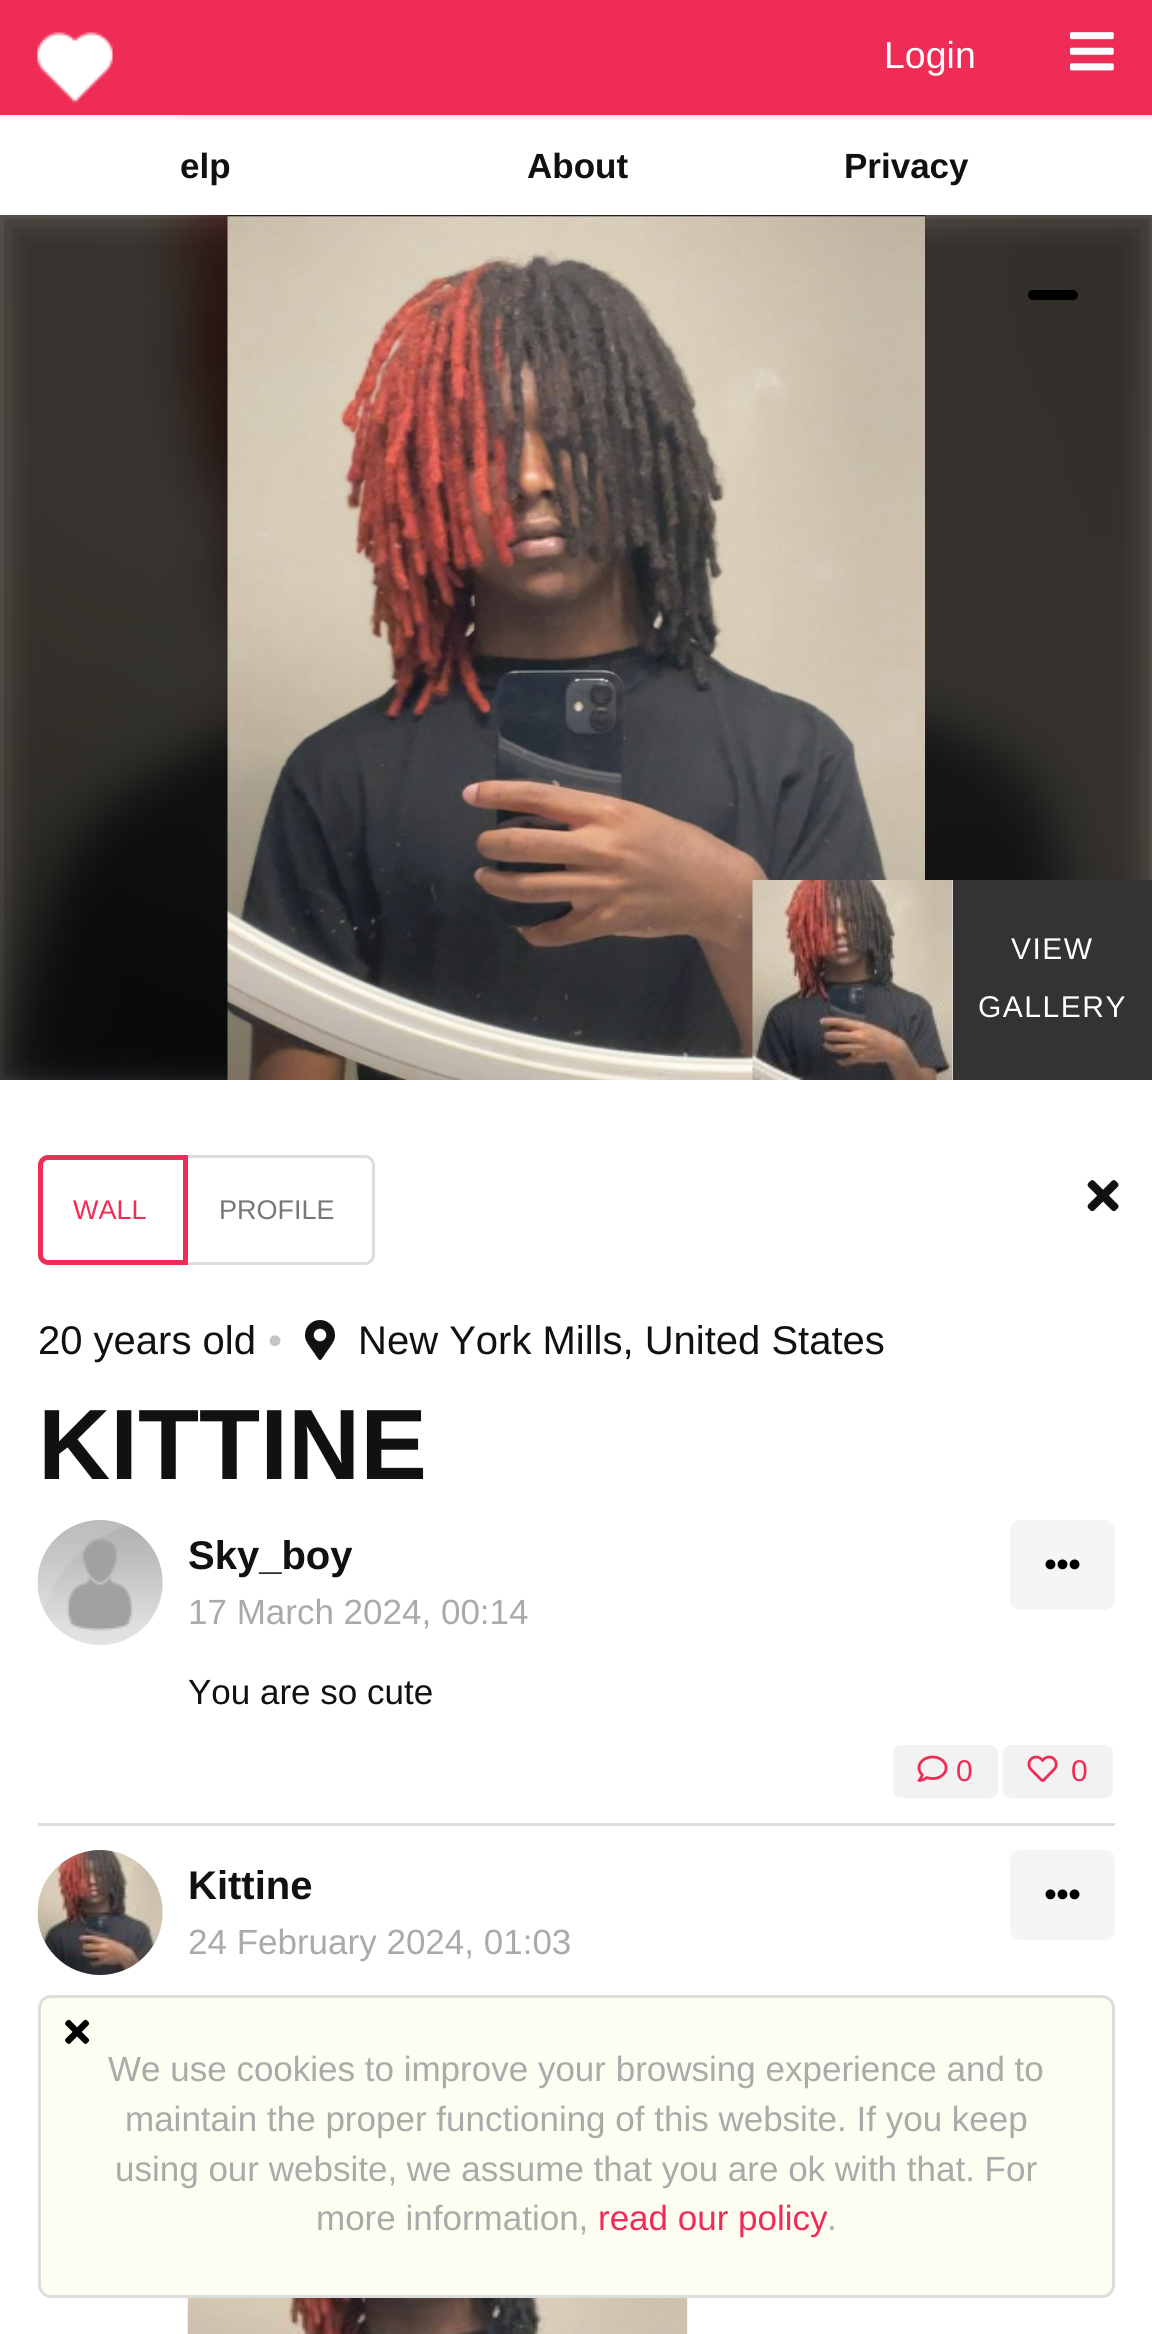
#include <cairo.h>
#include <math.h>
#include <stddef.h>

static cairo_t *ctx;

static void use_color(int r, int g, int b) {
    cairo_set_source_rgb(ctx, r / 255.0, g / 255.0, b / 255.0);
}

static void spaced_text(double x, double y, const char *s, double letter, double word) {
    cairo_move_to(ctx, x, y);
    while (*s) {
        char ch[5] = {0};
        int n = 0;
        do ch[n++] = *s++; while ((*s & 0xC0) == 0x80);
        cairo_show_text(ctx, ch);
        cairo_rel_move_to(ctx, letter + word * (*ch == ' '), 0);
    }
}

static void round_rect(double x, double y, double w, double h, double r) {
    cairo_new_sub_path(ctx);
    cairo_arc(ctx, x + w - r, y + h - r, r, 0, M_PI / 2);
    cairo_arc(ctx, x + r, y + h - r, r, M_PI / 2, M_PI);
    cairo_arc(ctx, x + r, y + r, r, M_PI, 1.5 * M_PI);
    cairo_arc(ctx, x + w - r, y + r, r, 1.5 * M_PI, 2 * M_PI);
    cairo_close_path(ctx);
}

static void shadow(double x, double y, double w, double h, double r, double blur, double alpha) {
    cairo_push_group_with_content(ctx, CAIRO_CONTENT_ALPHA);
    cairo_set_operator(ctx, CAIRO_OPERATOR_SOURCE);
    for (int i = 15; i >= -15 && fmin(w, h) + blur * i / 3 > 0; i -= 2) {
        double e = blur * i / 6;
        cairo_set_source_rgba(ctx, 0, 0, 0, alpha * erfc((i - 1) / 8.5) / 2);
        round_rect(x - e, y - e, w + 2 * e, h + 2 * e, fmax(0, fmin(r + e + blur * .6, fmin(w, h) / 2 + e)));
        cairo_fill(ctx);
    }
    cairo_pattern_t *soft = cairo_pop_group(ctx);
    cairo_mask(ctx, soft);
    cairo_pattern_destroy(soft);
}

static void picture(const char *path, double x, double y, double w, double h) {
    cairo_surface_t *image = cairo_image_surface_create_from_png(path);
    cairo_save(ctx);
    cairo_set_source_surface(ctx, image, x, y);
    cairo_rectangle(ctx, x, y, w, h);
    cairo_fill(ctx);
    cairo_restore(ctx);
    cairo_surface_destroy(image);
}

int main(void) {
    cairo_surface_t *surface = cairo_image_surface_create(CAIRO_FORMAT_RGB24, 1152, 2334);
    ctx = cairo_create(surface);
    cairo_font_options_t *options = cairo_font_options_create();
    cairo_font_options_set_hint_metrics(options, CAIRO_HINT_METRICS_OFF);
    cairo_font_options_set_hint_style(options, CAIRO_HINT_STYLE_NONE);
    cairo_set_font_options(ctx, options);
    cairo_set_miter_limit(ctx, 4);
    use_color(255, 255, 255);
    cairo_paint(ctx);
    use_color(0, 0, 0);
    shadow(0, 3, 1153, 115, 0, 1, 0.1);
    picture("img3.png", 0, 215, 1152, 865);
    cairo_save(ctx);
    cairo_rectangle(ctx, 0, 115, 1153, 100);
    cairo_clip(ctx);
    use_color(255, 255, 255);
    shadow(-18, 115, 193, 100, 0, 6, 0.8);
    cairo_restore(ctx);
    cairo_save(ctx);
    cairo_rectangle(ctx, 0, 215, 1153, 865);
    cairo_clip(ctx);
    shadow(-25, 190, 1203, 915, 0, 25, 0.75);
    cairo_restore(ctx);
    use_color(238, 44, 85);
    cairo_rectangle(ctx, 0, 0, 1152, 115);
    cairo_fill(ctx);
    picture("img1.png", 37, 31, 76, 73);
    cairo_select_font_face(ctx, "Liberation Sans", CAIRO_FONT_SLANT_NORMAL, CAIRO_FONT_WEIGHT_NORMAL);
    cairo_set_font_size(ctx, 37.5);
    use_color(255, 255, 255);
    cairo_move_to(ctx, 884, 68);
    cairo_show_text(ctx, "Login");
    picture("img2.png", 1070, 32, 44, 39);
    cairo_select_font_face(ctx, "Liberation Sans", CAIRO_FONT_SLANT_NORMAL, CAIRO_FONT_WEIGHT_BOLD);
    cairo_set_font_size(ctx, 35);
    use_color(17, 17, 17);
    cairo_move_to(ctx, 180, 178);
    cairo_show_text(ctx, "elp");
    cairo_move_to(ctx, 527, 178);
    cairo_show_text(ctx, "About");
    cairo_move_to(ctx, 844, 178);
    cairo_show_text(ctx, "Privacy");
    picture("img4.png", 227, 215, 698, 865);
    use_color(0, 0, 0);
    round_rect(1028, 290, 50, 10, 5);
    cairo_fill(ctx);
    use_color(238, 238, 244);
    cairo_rectangle(ctx, 952, 880, 1, 200);
    cairo_fill(ctx);
    picture("img5.png", 752, 880, 201, 200);
    use_color(51, 51, 51);
    cairo_rectangle(ctx, 953, 880, 199, 200);
    cairo_fill(ctx);
    cairo_select_font_face(ctx, "Liberation Sans", CAIRO_FONT_SLANT_NORMAL, CAIRO_FONT_WEIGHT_NORMAL);
    cairo_set_font_size(ctx, 30);
    use_color(255, 255, 255);
    spaced_text(1011, 959, "VIEW", 1.5, 0);
    spaced_text(978, 1017, "GALLERY", 1.5, 0);
    picture("img6.png", 1087, 1180, 32, 32);
    cairo_new_path(ctx);
    cairo_move_to(ctx, 186.5, 1156.5);
    cairo_line_to(ctx, 365, 1156.5);
    cairo_curve_to(ctx, 369.5, 1156.5, 373.5, 1160.5, 373.5, 1165);
    cairo_line_to(ctx, 373.5, 1255);
    cairo_curve_to(ctx, 373.5, 1259.5, 369.5, 1263.5, 365, 1263.5);
    cairo_line_to(ctx, 186.5, 1263.5);
    cairo_close_path(ctx);
    use_color(221, 221, 221);
    cairo_set_line_width(ctx, 3);
    cairo_stroke(ctx);
    cairo_set_source_rgba(ctx, 1, 1, 1, 0.95);
    cairo_new_path(ctx);
    cairo_move_to(ctx, 48, 1157.5);
    cairo_line_to(ctx, 185.5, 1157.5);
    cairo_line_to(ctx, 185.5, 1262.5);
    cairo_line_to(ctx, 48, 1262.5);
    cairo_curve_to(ctx, 44, 1262.5, 40.5, 1259, 40.5, 1255);
    cairo_line_to(ctx, 40.5, 1165);
    cairo_curve_to(ctx, 40.5, 1161, 44, 1157.5, 48, 1157.5);
    cairo_close_path(ctx);
    cairo_fill_preserve(ctx);
    use_color(238, 44, 85);
    cairo_set_line_width(ctx, 5);
    cairo_stroke(ctx);
    cairo_set_font_size(ctx, 27);
    cairo_move_to(ctx, 73, 1219);
    cairo_show_text(ctx, "WALL");
    use_color(119, 119, 119);
    cairo_move_to(ctx, 219, 1219);
    cairo_show_text(ctx, "PROFILE");
    cairo_set_font_size(ctx, 40);
    use_color(17, 17, 17);
    cairo_move_to(ctx, 38, 1354);
    cairo_show_text(ctx, "20 years old");
    use_color(196, 196, 196);
    cairo_move_to(ctx, 268, 1354);
    cairo_show_text(ctx, "•");
    picture("img7.png", 305, 1320, 30, 40);
    use_color(17, 17, 17);
    cairo_move_to(ctx, 358, 1354);
    cairo_show_text(ctx, "New York Mills, United States");
    cairo_select_font_face(ctx, "Liberation Sans", CAIRO_FONT_SLANT_NORMAL, CAIRO_FONT_WEIGHT_BOLD);
    cairo_set_font_size(ctx, 100);
    cairo_move_to(ctx, 38, 1479);
    cairo_show_text(ctx, "KITTINE");
    use_color(222, 222, 222);
    cairo_rectangle(ctx, 38, 1823, 1077, 3);
    cairo_fill(ctx);
    use_color(238, 238, 244);
    cairo_arc(ctx, 100.5, 1582.5, 62.5, 0, 2 * M_PI);
    cairo_fill(ctx);
    picture("img8.png", 37, 1520, 126, 125);
    cairo_set_font_size(ctx, 40);
    use_color(17, 17, 17);
    cairo_move_to(ctx, 188, 1569);
    cairo_show_text(ctx, "Sky_boy");
    use_color(245, 245, 245);
    round_rect(1010, 1520, 105, 90, 10);
    cairo_fill(ctx);
    picture("img9.png", 1045, 1559, 35, 11);
    cairo_select_font_face(ctx, "Liberation Sans", CAIRO_FONT_SLANT_NORMAL, CAIRO_FONT_WEIGHT_NORMAL);
    cairo_set_font_size(ctx, 35);
    use_color(170, 170, 170);
    cairo_move_to(ctx, 188, 1624);
    cairo_show_text(ctx, "17 March 2024, 00:14");
    use_color(17, 17, 17);
    cairo_move_to(ctx, 188, 1704);
    cairo_show_text(ctx, "You are so cute");
    use_color(242, 242, 242);
    round_rect(893, 1745, 105, 53, 8);
    cairo_fill(ctx);
    picture("img10.png", 917, 1755, 31, 27);
    cairo_set_font_size(ctx, 30);
    use_color(238, 44, 85);
    cairo_move_to(ctx, 956, 1781);
    cairo_show_text(ctx, "0");
    use_color(242, 242, 242);
    round_rect(1003, 1745, 110, 53, 8);
    cairo_fill(ctx);
    picture("img11.png", 1027, 1755, 31, 27);
    use_color(238, 44, 85);
    cairo_move_to(ctx, 1071, 1781);
    cairo_show_text(ctx, "0");
    use_color(238, 238, 244);
    cairo_new_path(ctx);
    cairo_arc(ctx, 100.5, 1912.5, 62.5, 0, 2 * M_PI);
    cairo_fill(ctx);
    picture("img12.png", 37, 1850, 126, 125);
    cairo_select_font_face(ctx, "Liberation Sans", CAIRO_FONT_SLANT_NORMAL, CAIRO_FONT_WEIGHT_BOLD);
    cairo_set_font_size(ctx, 40);
    use_color(17, 17, 17);
    cairo_move_to(ctx, 188, 1899);
    cairo_show_text(ctx, "Kittine");
    use_color(245, 245, 245);
    round_rect(1010, 1850, 105, 90, 10);
    cairo_fill(ctx);
    picture("img9.png", 1045, 1889, 35, 11);
    cairo_select_font_face(ctx, "Liberation Sans", CAIRO_FONT_SLANT_NORMAL, CAIRO_FONT_WEIGHT_NORMAL);
    cairo_set_font_size(ctx, 35);
    use_color(170, 170, 170);
    cairo_move_to(ctx, 188, 1954);
    cairo_show_text(ctx, "24 February 2024, 01:03");
    picture("img13.png", 187, 2298, 501, 36);
    use_color(253, 253, 241);
    round_rect(39.5, 1996.5, 1074, 300, 11.5);
    cairo_fill_preserve(ctx);
    use_color(221, 221, 221);
    cairo_set_line_width(ctx, 3);
    cairo_stroke(ctx);
    picture("img14.png", 65, 2019, 25, 25);
    use_color(170, 170, 170);
    cairo_move_to(ctx, 108, 2081);
    cairo_show_text(ctx, "We use cookies to improve your browsing experience and to");
    cairo_move_to(ctx, 125, 2131);
    cairo_show_text(ctx, "maintain the proper functioning of this website. If you keep");
    cairo_move_to(ctx, 115, 2181);
    cairo_show_text(ctx, "using our website, we assume that you are ok with that. For");
    cairo_move_to(ctx, 316, 2230);
    cairo_show_text(ctx, "more information,");
    use_color(238, 44, 85);
    cairo_move_to(ctx, 598, 2230);
    cairo_show_text(ctx, "read our policy");
    use_color(170, 170, 170);
    cairo_move_to(ctx, 827, 2230);
    cairo_show_text(ctx, ".");
    cairo_surface_write_to_png(surface, "result.png");
    cairo_font_options_destroy(options);
    cairo_destroy(ctx);
    cairo_surface_destroy(surface);
    return 0;
}
